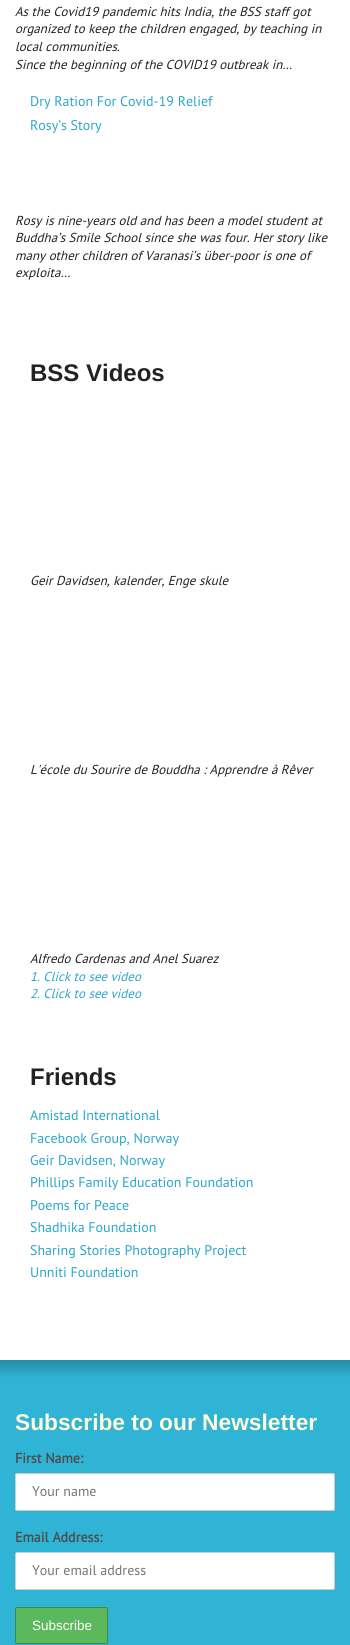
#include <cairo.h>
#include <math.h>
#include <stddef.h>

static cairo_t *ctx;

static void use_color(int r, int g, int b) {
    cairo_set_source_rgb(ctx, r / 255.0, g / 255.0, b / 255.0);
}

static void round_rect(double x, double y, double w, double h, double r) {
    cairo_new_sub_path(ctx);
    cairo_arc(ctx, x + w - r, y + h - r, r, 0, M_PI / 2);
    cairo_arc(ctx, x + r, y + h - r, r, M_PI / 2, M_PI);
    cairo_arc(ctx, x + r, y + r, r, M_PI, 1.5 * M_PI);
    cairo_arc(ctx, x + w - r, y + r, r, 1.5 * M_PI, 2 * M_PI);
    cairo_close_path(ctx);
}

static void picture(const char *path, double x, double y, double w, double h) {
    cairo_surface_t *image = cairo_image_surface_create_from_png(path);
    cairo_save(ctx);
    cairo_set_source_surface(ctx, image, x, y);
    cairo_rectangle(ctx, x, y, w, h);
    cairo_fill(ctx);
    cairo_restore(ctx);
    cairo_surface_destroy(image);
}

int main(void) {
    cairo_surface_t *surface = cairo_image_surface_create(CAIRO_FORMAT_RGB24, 350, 1645);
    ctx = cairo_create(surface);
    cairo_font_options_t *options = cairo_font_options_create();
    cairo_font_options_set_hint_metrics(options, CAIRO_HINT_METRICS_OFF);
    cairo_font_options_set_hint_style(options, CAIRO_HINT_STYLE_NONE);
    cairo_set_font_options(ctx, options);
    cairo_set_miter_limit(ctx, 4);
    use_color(255, 255, 255);
    cairo_paint(ctx);
    cairo_select_font_face(ctx, "PT Sans", CAIRO_FONT_SLANT_ITALIC, CAIRO_FONT_WEIGHT_NORMAL);
    cairo_set_font_size(ctx, 13);
    use_color(34, 34, 34);
    cairo_move_to(ctx, 15, 16);
    cairo_show_text(ctx, "As the Covid19 pandemic hits India, the BSS staff got");
    cairo_move_to(ctx, 15, 33);
    cairo_show_text(ctx, "organized to keep the children engaged, by teaching in");
    cairo_move_to(ctx, 15, 51);
    cairo_show_text(ctx, "local communities.");
    cairo_move_to(ctx, 15, 69);
    cairo_show_text(ctx, "Since the beginning of the COVID19 outbreak in…");
    cairo_select_font_face(ctx, "PT Sans", CAIRO_FONT_SLANT_NORMAL, CAIRO_FONT_WEIGHT_NORMAL);
    cairo_set_font_size(ctx, 14);
    use_color(43, 166, 203);
    cairo_move_to(ctx, 30, 106);
    cairo_show_text(ctx, "Dry Ration For Covid-19 Relief");
    cairo_move_to(ctx, 30, 130);
    cairo_show_text(ctx, "Rosy’s Story");
    cairo_select_font_face(ctx, "PT Sans", CAIRO_FONT_SLANT_ITALIC, CAIRO_FONT_WEIGHT_NORMAL);
    cairo_set_font_size(ctx, 13);
    use_color(34, 34, 34);
    cairo_move_to(ctx, 15, 225);
    cairo_show_text(ctx, "Rosy is nine-years old and has been a model student at");
    cairo_move_to(ctx, 15, 242);
    cairo_show_text(ctx, "Buddha’s Smile School since she was four. Her story like");
    cairo_move_to(ctx, 15, 260);
    cairo_show_text(ctx, "many other children of Varanasi’s über-poor is one of");
    cairo_move_to(ctx, 15, 277);
    cairo_show_text(ctx, "exploita…");
    cairo_select_font_face(ctx, "Liberation Sans", CAIRO_FONT_SLANT_NORMAL, CAIRO_FONT_WEIGHT_BOLD);
    cairo_set_font_size(ctx, 24);
    cairo_move_to(ctx, 30, 381);
    cairo_show_text(ctx, "BSS Videos");
    cairo_select_font_face(ctx, "PT Sans", CAIRO_FONT_SLANT_ITALIC, CAIRO_FONT_WEIGHT_NORMAL);
    cairo_set_font_size(ctx, 13);
    cairo_move_to(ctx, 30, 585);
    cairo_show_text(ctx, "Geir Davidsen, kalender, Enge skule");
    cairo_move_to(ctx, 30, 774);
    cairo_show_text(ctx, "L'école du Sourire de Bouddha : Apprendre à Rêver");
    cairo_move_to(ctx, 30, 963);
    cairo_show_text(ctx, "Alfredo Cardenas and Anel Suarez");
    use_color(43, 166, 203);
    cairo_move_to(ctx, 30, 981);
    cairo_show_text(ctx, "1. Click to see video");
    cairo_move_to(ctx, 30, 998);
    cairo_show_text(ctx, "2. Click to see video");
    cairo_select_font_face(ctx, "Liberation Sans", CAIRO_FONT_SLANT_NORMAL, CAIRO_FONT_WEIGHT_BOLD);
    cairo_set_font_size(ctx, 24);
    use_color(34, 34, 34);
    cairo_move_to(ctx, 30, 1085);
    cairo_show_text(ctx, "Friends");
    cairo_select_font_face(ctx, "PT Sans", CAIRO_FONT_SLANT_NORMAL, CAIRO_FONT_WEIGHT_NORMAL);
    cairo_set_font_size(ctx, 14);
    use_color(43, 166, 203);
    cairo_move_to(ctx, 30, 1120);
    cairo_show_text(ctx, "Amistad International");
    cairo_move_to(ctx, 30, 1143);
    cairo_show_text(ctx, "Facebook Group, Norway");
    cairo_move_to(ctx, 30, 1165);
    cairo_show_text(ctx, "Geir Davidsen, Norway");
    cairo_move_to(ctx, 30, 1187);
    cairo_show_text(ctx, "Phillips Family Education Foundation");
    cairo_move_to(ctx, 30, 1210);
    cairo_show_text(ctx, "Poems for Peace");
    cairo_move_to(ctx, 30, 1232);
    cairo_show_text(ctx, "Shadhika Foundation");
    cairo_move_to(ctx, 30, 1255);
    cairo_show_text(ctx, "Sharing Stories Photography Project");
    cairo_move_to(ctx, 30, 1277);
    cairo_show_text(ctx, "Unniti Foundation");
    use_color(48, 180, 213);
    cairo_rectangle(ctx, 0, 1360, 350, 285);
    cairo_fill(ctx);
    picture("img1.png", 0, 1360, 350, 17);
    cairo_select_font_face(ctx, "Liberation Sans", CAIRO_FONT_SLANT_NORMAL, CAIRO_FONT_WEIGHT_BOLD);
    cairo_set_font_size(ctx, 22.75);
    use_color(255, 249, 222);
    cairo_move_to(ctx, 15, 1430);
    cairo_show_text(ctx, "Subscribe to our Newsletter");
    cairo_select_font_face(ctx, "PT Sans", CAIRO_FONT_SLANT_NORMAL, CAIRO_FONT_WEIGHT_BOLD);
    cairo_set_font_size(ctx, 14);
    use_color(77, 77, 77);
    cairo_move_to(ctx, 15, 1463);
    cairo_show_text(ctx, "First Name:");
    use_color(255, 255, 255);
    round_rect(15.5, 1473.5, 319, 37, 1.5);
    cairo_fill_preserve(ctx);
    use_color(204, 204, 204);
    cairo_set_line_width(ctx, 1);
    cairo_stroke(ctx);
    cairo_select_font_face(ctx, "PT Sans", CAIRO_FONT_SLANT_NORMAL, CAIRO_FONT_WEIGHT_NORMAL);
    use_color(117, 117, 117);
    cairo_move_to(ctx, 32, 1496);
    cairo_show_text(ctx, "Your name");
    cairo_select_font_face(ctx, "PT Sans", CAIRO_FONT_SLANT_NORMAL, CAIRO_FONT_WEIGHT_BOLD);
    use_color(77, 77, 77);
    cairo_move_to(ctx, 15, 1542);
    cairo_show_text(ctx, "Email Address:");
    use_color(255, 255, 255);
    round_rect(15.5, 1552.5, 319, 37, 1.5);
    cairo_fill_preserve(ctx);
    use_color(204, 204, 204);
    cairo_stroke(ctx);
    cairo_select_font_face(ctx, "PT Sans", CAIRO_FONT_SLANT_NORMAL, CAIRO_FONT_WEIGHT_NORMAL);
    use_color(117, 117, 117);
    cairo_move_to(ctx, 32, 1575);
    cairo_show_text(ctx, "Your email address");
    use_color(92, 184, 92);
    round_rect(15.5, 1607.5, 92, 36, 1.5);
    cairo_fill_preserve(ctx);
    use_color(61, 139, 61);
    cairo_stroke(ctx);
    cairo_select_font_face(ctx, "Liberation Sans", CAIRO_FONT_SLANT_NORMAL, CAIRO_FONT_WEIGHT_NORMAL);
    cairo_set_font_size(ctx, 13.5);
    use_color(255, 255, 255);
    cairo_move_to(ctx, 32, 1630);
    cairo_show_text(ctx, "Subscribe");
    cairo_surface_write_to_png(surface, "result.png");
    cairo_font_options_destroy(options);
    cairo_destroy(ctx);
    cairo_surface_destroy(surface);
    return 0;
}
